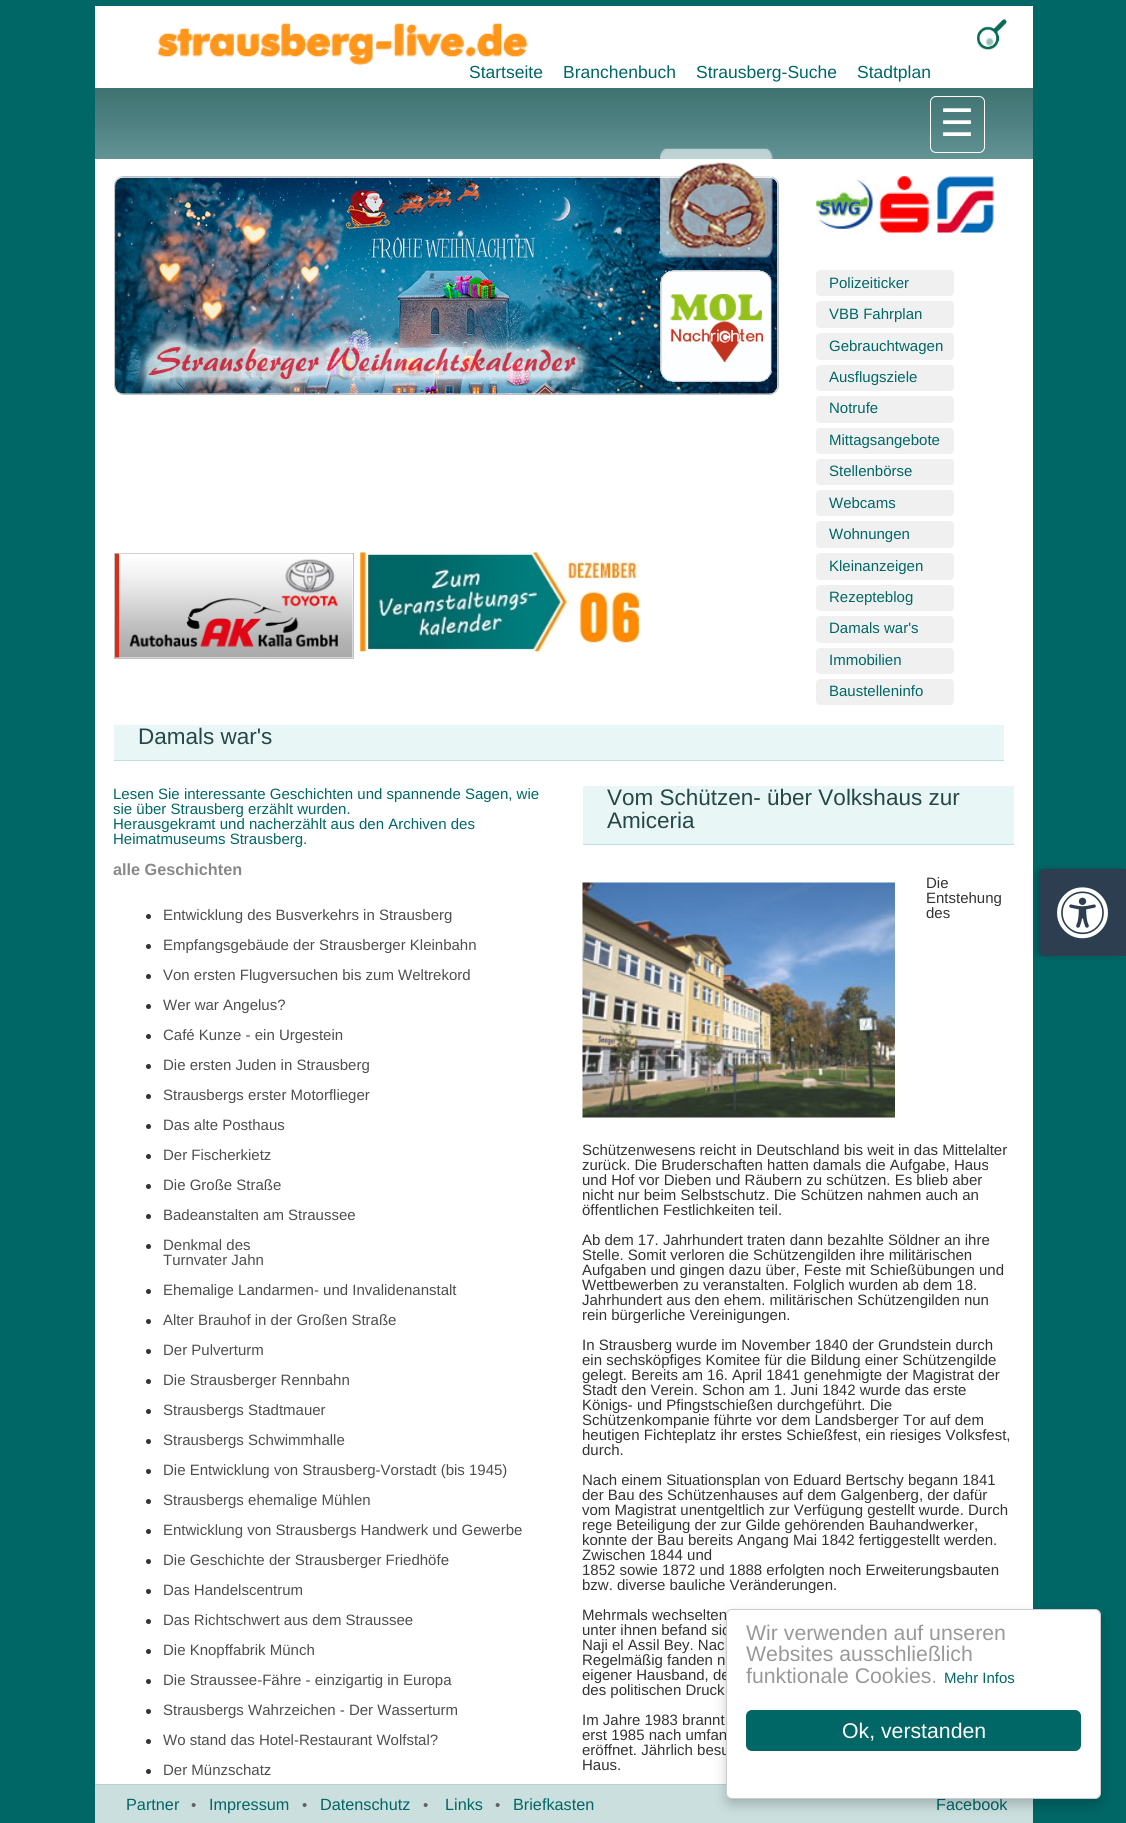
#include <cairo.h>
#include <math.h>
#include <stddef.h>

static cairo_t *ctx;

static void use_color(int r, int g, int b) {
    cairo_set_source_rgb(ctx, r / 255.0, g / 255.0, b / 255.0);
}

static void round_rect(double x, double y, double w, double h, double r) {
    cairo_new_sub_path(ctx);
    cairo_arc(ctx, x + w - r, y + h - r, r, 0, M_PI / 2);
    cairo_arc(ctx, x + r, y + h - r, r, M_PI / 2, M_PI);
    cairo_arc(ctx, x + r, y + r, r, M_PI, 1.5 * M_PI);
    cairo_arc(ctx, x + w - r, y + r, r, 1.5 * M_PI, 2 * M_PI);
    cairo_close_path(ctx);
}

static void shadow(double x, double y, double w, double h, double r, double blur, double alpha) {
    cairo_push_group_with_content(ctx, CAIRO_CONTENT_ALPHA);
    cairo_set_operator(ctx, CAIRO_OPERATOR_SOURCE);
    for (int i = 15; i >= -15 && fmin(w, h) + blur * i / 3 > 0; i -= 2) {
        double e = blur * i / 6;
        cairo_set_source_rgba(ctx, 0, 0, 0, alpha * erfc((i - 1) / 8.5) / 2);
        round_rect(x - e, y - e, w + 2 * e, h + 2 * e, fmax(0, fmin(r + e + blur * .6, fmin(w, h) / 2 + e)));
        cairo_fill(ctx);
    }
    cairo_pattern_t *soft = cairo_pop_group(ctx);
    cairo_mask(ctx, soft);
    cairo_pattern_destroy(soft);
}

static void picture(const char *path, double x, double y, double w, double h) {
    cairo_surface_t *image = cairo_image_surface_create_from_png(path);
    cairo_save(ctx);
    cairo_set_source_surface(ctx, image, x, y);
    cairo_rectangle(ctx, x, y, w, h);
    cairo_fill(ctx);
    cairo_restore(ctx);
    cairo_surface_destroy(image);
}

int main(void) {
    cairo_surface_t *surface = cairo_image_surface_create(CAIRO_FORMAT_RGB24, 1126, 1823);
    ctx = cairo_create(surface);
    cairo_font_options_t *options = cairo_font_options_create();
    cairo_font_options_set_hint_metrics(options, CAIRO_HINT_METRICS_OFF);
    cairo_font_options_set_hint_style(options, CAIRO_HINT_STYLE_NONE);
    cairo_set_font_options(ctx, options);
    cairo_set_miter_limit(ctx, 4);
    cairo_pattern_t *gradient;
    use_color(0, 102, 102);
    cairo_paint(ctx);
    use_color(255, 255, 255);
    cairo_rectangle(ctx, 95, 6, 938, 1778);
    cairo_fill(ctx);
    cairo_select_font_face(ctx, "Liberation Sans", CAIRO_FONT_SLANT_NORMAL, CAIRO_FONT_WEIGHT_NORMAL);
    cairo_set_font_size(ctx, 17.5);
    use_color(0, 102, 102);
    cairo_move_to(ctx, 469, 78);
    cairo_show_text(ctx, "Startseite");
    picture("img1.png", 157, 23, 371, 43);
    picture("img2.png", 977, 18, 30, 32);
    cairo_move_to(ctx, 563, 78);
    cairo_show_text(ctx, "Branchenbuch");
    cairo_move_to(ctx, 696, 78);
    cairo_show_text(ctx, "Strausberg-Suche");
    cairo_move_to(ctx, 857, 78);
    cairo_show_text(ctx, "Stadtplan");
    gradient = cairo_pattern_create_linear(564, 87, 564, 159);
    cairo_pattern_add_color_stop_rgba(gradient, 0, 0.243, 0.447, 0.439, 1);
    cairo_pattern_add_color_stop_rgba(gradient, 0.5, 0.31, 0.506, 0.51, 1);
    cairo_pattern_add_color_stop_rgba(gradient, 1, 0.384, 0.58, 0.584, 1);
    cairo_set_source(ctx, gradient);
    cairo_pattern_destroy(gradient);
    cairo_rectangle(ctx, 95, 88, 938, 71);
    cairo_fill(ctx);
    round_rect(930.5, 96.5, 54, 56, 5.5);
    use_color(255, 255, 255);
    cairo_set_line_width(ctx, 1);
    cairo_stroke(ctx);
    cairo_select_font_face(ctx, "DejaVu Sans", CAIRO_FONT_SLANT_NORMAL, CAIRO_FONT_WEIGHT_NORMAL);
    cairo_set_font_size(ctx, 38);
    cairo_move_to(ctx, 940, 136);
    cairo_show_text(ctx, "☰");
    use_color(240, 240, 240);
    round_rect(816, 301, 138, 27, 4);
    cairo_fill(ctx);
    cairo_select_font_face(ctx, "Liberation Sans", CAIRO_FONT_SLANT_NORMAL, CAIRO_FONT_WEIGHT_NORMAL);
    cairo_set_font_size(ctx, 15);
    use_color(0, 102, 102);
    cairo_move_to(ctx, 829, 319);
    cairo_show_text(ctx, "VBB Fahrplan");
    picture("img3.png", 843, 318, 2, 2);
    cairo_rectangle(ctx, 114.5, 553.5, 239, 105);
    use_color(193, 193, 193);
    cairo_stroke(ctx);
    picture("img4.png", 115, 553, 238, 105);
    picture("img5.png", 360, 552, 279, 100);
    round_rect(114.5, 176.5, 664, 218, 9.5);
    cairo_stroke(ctx);
    picture("img7.png", 115, 177, 663, 217);
    picture("img6.png", 660, 148, 113, 110);
    picture("img8.png", 660, 270, 112, 113);
    picture("img9.png", 816, 176, 57, 56);
    picture("img10.png", 876, 176, 57, 57);
    picture("img11.png", 937, 176, 57, 57);
    use_color(240, 240, 240);
    round_rect(816, 270, 138, 26, 4);
    cairo_fill(ctx);
    use_color(0, 102, 102);
    cairo_move_to(ctx, 829, 288);
    cairo_show_text(ctx, "Polizeiticker");
    use_color(240, 240, 240);
    round_rect(816, 333, 138, 27, 4);
    cairo_fill(ctx);
    use_color(0, 102, 102);
    cairo_move_to(ctx, 829, 351);
    cairo_show_text(ctx, "Gebrauchtwagen");
    use_color(240, 240, 240);
    round_rect(816, 365, 138, 26, 4);
    cairo_fill(ctx);
    use_color(0, 102, 102);
    cairo_move_to(ctx, 829, 382);
    cairo_show_text(ctx, "Ausflugsziele");
    use_color(240, 240, 240);
    round_rect(816, 396, 138, 27, 4);
    cairo_fill(ctx);
    use_color(0, 102, 102);
    cairo_move_to(ctx, 829, 413);
    cairo_show_text(ctx, "Notrufe");
    use_color(240, 240, 240);
    round_rect(816, 428, 138, 26, 4);
    cairo_fill(ctx);
    use_color(0, 102, 102);
    cairo_move_to(ctx, 829, 445);
    cairo_show_text(ctx, "Mittagsangebote");
    use_color(240, 240, 240);
    round_rect(816, 459, 138, 26, 4);
    cairo_fill(ctx);
    use_color(0, 102, 102);
    cairo_move_to(ctx, 829, 476);
    cairo_show_text(ctx, "Stellenbörse");
    use_color(240, 240, 240);
    round_rect(816, 490, 138, 26, 4);
    cairo_fill(ctx);
    use_color(0, 102, 102);
    cairo_move_to(ctx, 829, 508);
    cairo_show_text(ctx, "Webcams");
    use_color(240, 240, 240);
    round_rect(816, 521, 138, 27, 4);
    cairo_fill(ctx);
    use_color(0, 102, 102);
    cairo_move_to(ctx, 829, 539);
    cairo_show_text(ctx, "Wohnungen");
    use_color(240, 240, 240);
    round_rect(816, 553, 138, 27, 4);
    cairo_fill(ctx);
    use_color(0, 102, 102);
    cairo_move_to(ctx, 829, 571);
    cairo_show_text(ctx, "Kleinanzeigen");
    use_color(240, 240, 240);
    round_rect(816, 585, 138, 26, 4);
    cairo_fill(ctx);
    use_color(0, 102, 102);
    cairo_move_to(ctx, 829, 602);
    cairo_show_text(ctx, "Rezepteblog");
    use_color(240, 240, 240);
    round_rect(816, 616, 138, 27, 4);
    cairo_fill(ctx);
    use_color(0, 102, 102);
    cairo_move_to(ctx, 829, 633);
    cairo_show_text(ctx, "Damals war's");
    use_color(240, 240, 240);
    round_rect(816, 648, 138, 26, 4);
    cairo_fill(ctx);
    use_color(0, 102, 102);
    cairo_move_to(ctx, 829, 665);
    cairo_show_text(ctx, "Immobilien");
    use_color(240, 240, 240);
    round_rect(816, 679, 138, 26, 4);
    cairo_fill(ctx);
    use_color(0, 102, 102);
    cairo_move_to(ctx, 829, 696);
    cairo_show_text(ctx, "Baustelleninfo");
    use_color(233, 246, 246);
    cairo_rectangle(ctx, 114, 725, 890, 35);
    cairo_fill(ctx);
    use_color(187, 226, 226);
    cairo_rectangle(ctx, 114, 760, 890, 1);
    cairo_fill(ctx);
    cairo_set_font_size(ctx, 22.5);
    use_color(38, 71, 71);
    cairo_move_to(ctx, 138, 744);
    cairo_show_text(ctx, "Damals war's");
    cairo_set_font_size(ctx, 15);
    use_color(0, 102, 102);
    cairo_move_to(ctx, 113, 799);
    cairo_show_text(ctx, "Lesen Sie interessante Geschichten und spannende Sagen, wie");
    cairo_move_to(ctx, 113, 814);
    cairo_show_text(ctx, "sie über Strausberg erzählt wurden.");
    cairo_move_to(ctx, 113, 829);
    cairo_show_text(ctx, "Herausgekramt und nacherzählt aus den Archiven des");
    cairo_move_to(ctx, 113, 844);
    cairo_show_text(ctx, "Heimatmuseums Strausberg.");
    cairo_select_font_face(ctx, "Liberation Sans", CAIRO_FONT_SLANT_NORMAL, CAIRO_FONT_WEIGHT_BOLD);
    cairo_set_font_size(ctx, 16.25);
    use_color(136, 136, 136);
    cairo_move_to(ctx, 113, 875);
    cairo_show_text(ctx, "alle Geschichten");
    use_color(51, 51, 51);
    cairo_new_path(ctx);
    cairo_arc(ctx, 148.5, 916.5, 2.5, 0, 2 * M_PI);
    cairo_fill(ctx);
    cairo_select_font_face(ctx, "Liberation Sans", CAIRO_FONT_SLANT_NORMAL, CAIRO_FONT_WEIGHT_NORMAL);
    cairo_set_font_size(ctx, 15);
    use_color(78, 78, 78);
    cairo_move_to(ctx, 163, 920);
    cairo_show_text(ctx, "Entwicklung des Busverkehrs in Strausberg");
    use_color(51, 51, 51);
    cairo_new_path(ctx);
    cairo_arc(ctx, 148.5, 946.5, 2.5, 0, 2 * M_PI);
    cairo_fill(ctx);
    use_color(78, 78, 78);
    cairo_move_to(ctx, 163, 950);
    cairo_show_text(ctx, "Empfangsgebäude der Strausberger Kleinbahn");
    use_color(51, 51, 51);
    cairo_new_path(ctx);
    cairo_arc(ctx, 148.5, 976.5, 2.5, 0, 2 * M_PI);
    cairo_fill(ctx);
    use_color(78, 78, 78);
    cairo_move_to(ctx, 163, 980);
    cairo_show_text(ctx, "Von ersten Flugversuchen bis zum Weltrekord");
    use_color(51, 51, 51);
    cairo_new_path(ctx);
    cairo_arc(ctx, 148.5, 1006.5, 2.5, 0, 2 * M_PI);
    cairo_fill(ctx);
    use_color(78, 78, 78);
    cairo_move_to(ctx, 163, 1010);
    cairo_show_text(ctx, "Wer war Angelus?");
    use_color(51, 51, 51);
    cairo_new_path(ctx);
    cairo_arc(ctx, 148.5, 1036.5, 2.5, 0, 2 * M_PI);
    cairo_fill(ctx);
    use_color(78, 78, 78);
    cairo_move_to(ctx, 163, 1040);
    cairo_show_text(ctx, "Café Kunze - ein Urgestein");
    use_color(51, 51, 51);
    cairo_new_path(ctx);
    cairo_arc(ctx, 148.5, 1066.5, 2.5, 0, 2 * M_PI);
    cairo_fill(ctx);
    use_color(78, 78, 78);
    cairo_move_to(ctx, 163, 1070);
    cairo_show_text(ctx, "Die ersten Juden in Strausberg");
    use_color(51, 51, 51);
    cairo_new_path(ctx);
    cairo_arc(ctx, 148.5, 1096.5, 2.5, 0, 2 * M_PI);
    cairo_fill(ctx);
    use_color(78, 78, 78);
    cairo_move_to(ctx, 163, 1100);
    cairo_show_text(ctx, "Strausbergs erster Motorflieger");
    use_color(51, 51, 51);
    cairo_new_path(ctx);
    cairo_arc(ctx, 148.5, 1126.5, 2.5, 0, 2 * M_PI);
    cairo_fill(ctx);
    use_color(78, 78, 78);
    cairo_move_to(ctx, 163, 1130);
    cairo_show_text(ctx, "Das alte Posthaus");
    use_color(51, 51, 51);
    cairo_new_path(ctx);
    cairo_arc(ctx, 148.5, 1156.5, 2.5, 0, 2 * M_PI);
    cairo_fill(ctx);
    use_color(78, 78, 78);
    cairo_move_to(ctx, 163, 1160);
    cairo_show_text(ctx, "Der Fischerkietz");
    use_color(51, 51, 51);
    cairo_new_path(ctx);
    cairo_arc(ctx, 148.5, 1186.5, 2.5, 0, 2 * M_PI);
    cairo_fill(ctx);
    use_color(78, 78, 78);
    cairo_move_to(ctx, 163, 1190);
    cairo_show_text(ctx, "Die Große Straße");
    use_color(51, 51, 51);
    cairo_new_path(ctx);
    cairo_arc(ctx, 148.5, 1216.5, 2.5, 0, 2 * M_PI);
    cairo_fill(ctx);
    use_color(78, 78, 78);
    cairo_move_to(ctx, 163, 1220);
    cairo_show_text(ctx, "Badeanstalten am Straussee");
    use_color(51, 51, 51);
    cairo_new_path(ctx);
    cairo_arc(ctx, 148.5, 1246.5, 2.5, 0, 2 * M_PI);
    cairo_fill(ctx);
    use_color(78, 78, 78);
    cairo_move_to(ctx, 163, 1250);
    cairo_show_text(ctx, "Denkmal des");
    cairo_move_to(ctx, 163, 1265);
    cairo_show_text(ctx, "Turnvater Jahn");
    use_color(51, 51, 51);
    cairo_new_path(ctx);
    cairo_arc(ctx, 148.5, 1291.5, 2.5, 0, 2 * M_PI);
    cairo_fill(ctx);
    use_color(78, 78, 78);
    cairo_move_to(ctx, 163, 1295);
    cairo_show_text(ctx, "Ehemalige Landarmen- und Invalidenanstalt");
    use_color(51, 51, 51);
    cairo_new_path(ctx);
    cairo_arc(ctx, 148.5, 1321.5, 2.5, 0, 2 * M_PI);
    cairo_fill(ctx);
    use_color(78, 78, 78);
    cairo_move_to(ctx, 163, 1325);
    cairo_show_text(ctx, "Alter Brauhof in der Großen Straße");
    use_color(51, 51, 51);
    cairo_new_path(ctx);
    cairo_arc(ctx, 148.5, 1351.5, 2.5, 0, 2 * M_PI);
    cairo_fill(ctx);
    use_color(78, 78, 78);
    cairo_move_to(ctx, 163, 1355);
    cairo_show_text(ctx, "Der Pulverturm");
    use_color(51, 51, 51);
    cairo_new_path(ctx);
    cairo_arc(ctx, 148.5, 1381.5, 2.5, 0, 2 * M_PI);
    cairo_fill(ctx);
    use_color(78, 78, 78);
    cairo_move_to(ctx, 163, 1385);
    cairo_show_text(ctx, "Die Strausberger Rennbahn");
    use_color(51, 51, 51);
    cairo_new_path(ctx);
    cairo_arc(ctx, 148.5, 1411.5, 2.5, 0, 2 * M_PI);
    cairo_fill(ctx);
    use_color(78, 78, 78);
    cairo_move_to(ctx, 163, 1415);
    cairo_show_text(ctx, "Strausbergs Stadtmauer");
    use_color(51, 51, 51);
    cairo_new_path(ctx);
    cairo_arc(ctx, 148.5, 1441.5, 2.5, 0, 2 * M_PI);
    cairo_fill(ctx);
    use_color(78, 78, 78);
    cairo_move_to(ctx, 163, 1445);
    cairo_show_text(ctx, "Strausbergs Schwimmhalle");
    use_color(51, 51, 51);
    cairo_new_path(ctx);
    cairo_arc(ctx, 148.5, 1471.5, 2.5, 0, 2 * M_PI);
    cairo_fill(ctx);
    use_color(78, 78, 78);
    cairo_move_to(ctx, 163, 1475);
    cairo_show_text(ctx, "Die Entwicklung von Strausberg-Vorstadt (bis 1945)");
    use_color(51, 51, 51);
    cairo_new_path(ctx);
    cairo_arc(ctx, 148.5, 1501.5, 2.5, 0, 2 * M_PI);
    cairo_fill(ctx);
    use_color(78, 78, 78);
    cairo_move_to(ctx, 163, 1505);
    cairo_show_text(ctx, "Strausbergs ehemalige Mühlen");
    use_color(51, 51, 51);
    cairo_new_path(ctx);
    cairo_arc(ctx, 148.5, 1531.5, 2.5, 0, 2 * M_PI);
    cairo_fill(ctx);
    use_color(78, 78, 78);
    cairo_move_to(ctx, 163, 1535);
    cairo_show_text(ctx, "Entwicklung von Strausbergs Handwerk und Gewerbe");
    use_color(51, 51, 51);
    cairo_new_path(ctx);
    cairo_arc(ctx, 148.5, 1561.5, 2.5, 0, 2 * M_PI);
    cairo_fill(ctx);
    use_color(78, 78, 78);
    cairo_move_to(ctx, 163, 1565);
    cairo_show_text(ctx, "Die Geschichte der Strausberger Friedhöfe");
    use_color(51, 51, 51);
    cairo_new_path(ctx);
    cairo_arc(ctx, 148.5, 1591.5, 2.5, 0, 2 * M_PI);
    cairo_fill(ctx);
    use_color(78, 78, 78);
    cairo_move_to(ctx, 163, 1595);
    cairo_show_text(ctx, "Das Handelscentrum");
    use_color(51, 51, 51);
    cairo_new_path(ctx);
    cairo_arc(ctx, 148.5, 1621.5, 2.5, 0, 2 * M_PI);
    cairo_fill(ctx);
    use_color(78, 78, 78);
    cairo_move_to(ctx, 163, 1625);
    cairo_show_text(ctx, "Das Richtschwert aus dem Straussee");
    use_color(51, 51, 51);
    cairo_new_path(ctx);
    cairo_arc(ctx, 148.5, 1651.5, 2.5, 0, 2 * M_PI);
    cairo_fill(ctx);
    use_color(78, 78, 78);
    cairo_move_to(ctx, 163, 1655);
    cairo_show_text(ctx, "Die Knopffabrik Münch");
    use_color(51, 51, 51);
    cairo_new_path(ctx);
    cairo_arc(ctx, 148.5, 1681.5, 2.5, 0, 2 * M_PI);
    cairo_fill(ctx);
    use_color(78, 78, 78);
    cairo_move_to(ctx, 163, 1685);
    cairo_show_text(ctx, "Die Straussee-Fähre - einzigartig in Europa");
    use_color(51, 51, 51);
    cairo_new_path(ctx);
    cairo_arc(ctx, 148.5, 1711.5, 2.5, 0, 2 * M_PI);
    cairo_fill(ctx);
    use_color(78, 78, 78);
    cairo_move_to(ctx, 163, 1715);
    cairo_show_text(ctx, "Strausbergs Wahrzeichen - Der Wasserturm");
    use_color(51, 51, 51);
    cairo_new_path(ctx);
    cairo_arc(ctx, 148.5, 1741.5, 2.5, 0, 2 * M_PI);
    cairo_fill(ctx);
    use_color(78, 78, 78);
    cairo_move_to(ctx, 163, 1745);
    cairo_show_text(ctx, "Wo stand das Hotel-Restaurant Wolfstal?");
    use_color(51, 51, 51);
    cairo_new_path(ctx);
    cairo_arc(ctx, 148.5, 1771.5, 2.5, 0, 2 * M_PI);
    cairo_fill(ctx);
    use_color(78, 78, 78);
    cairo_move_to(ctx, 163, 1775);
    cairo_show_text(ctx, "Der Münzschatz");
    use_color(233, 246, 246);
    cairo_rectangle(ctx, 583, 786, 431, 58);
    cairo_fill(ctx);
    use_color(187, 226, 226);
    cairo_rectangle(ctx, 583, 844, 431, 1);
    cairo_fill(ctx);
    cairo_set_font_size(ctx, 22.5);
    use_color(38, 71, 71);
    cairo_move_to(ctx, 607, 805);
    cairo_show_text(ctx, "Vom Schützen- über Volkshaus zur");
    cairo_move_to(ctx, 607, 828);
    cairo_show_text(ctx, "Amiceria");
    picture("img12.png", 582, 882, 313, 236);
    cairo_set_font_size(ctx, 15);
    use_color(51, 51, 51);
    cairo_move_to(ctx, 926, 888);
    cairo_show_text(ctx, "Die");
    cairo_move_to(ctx, 926, 903);
    cairo_show_text(ctx, "Entstehung");
    cairo_move_to(ctx, 926, 918);
    cairo_show_text(ctx, "des");
    cairo_move_to(ctx, 582, 1155);
    cairo_show_text(ctx, "Schützenwesens reicht in Deutschland bis weit in das Mittelalter");
    cairo_move_to(ctx, 582, 1170);
    cairo_show_text(ctx, "zurück. Die Bruderschaften hatten damals die Aufgabe, Haus");
    cairo_move_to(ctx, 582, 1185);
    cairo_show_text(ctx, "und Hof vor Dieben und Räubern zu schützen. Es blieb aber");
    cairo_move_to(ctx, 582, 1200);
    cairo_show_text(ctx, "nicht nur beim Selbstschutz. Die Schützen nahmen auch an");
    cairo_move_to(ctx, 582, 1215);
    cairo_show_text(ctx, "öffentlichen Festlichkeiten teil.");
    cairo_move_to(ctx, 582, 1245);
    cairo_show_text(ctx, "Ab dem 17. Jahrhundert traten dann bezahlte Söldner an ihre");
    cairo_move_to(ctx, 582, 1260);
    cairo_show_text(ctx, "Stelle. Somit verloren die Schützengilden ihre militärischen");
    cairo_move_to(ctx, 582, 1275);
    cairo_show_text(ctx, "Aufgaben und gingen dazu über, Feste mit Schießübungen und");
    cairo_move_to(ctx, 582, 1290);
    cairo_show_text(ctx, "Wettbewerben zu veranstalten. Folglich wurden ab dem 18.");
    cairo_move_to(ctx, 582, 1305);
    cairo_show_text(ctx, "Jahrhundert aus den ehem. militärischen Schützengilden nun");
    cairo_move_to(ctx, 582, 1320);
    cairo_show_text(ctx, "rein bürgerliche Vereinigungen.");
    cairo_move_to(ctx, 582, 1350);
    cairo_show_text(ctx, "In Strausberg wurde im November 1840 der Grundstein durch");
    cairo_move_to(ctx, 582, 1365);
    cairo_show_text(ctx, "ein sechsköpfiges Komitee für die Bildung einer Schützengilde");
    cairo_move_to(ctx, 582, 1380);
    cairo_show_text(ctx, "gelegt. Bereits am 16. April 1841 genehmigte der Magistrat der");
    cairo_move_to(ctx, 582, 1395);
    cairo_show_text(ctx, "Stadt den Verein. Schon am 1. Juni 1842 wurde das erste");
    cairo_move_to(ctx, 582, 1410);
    cairo_show_text(ctx, "Königs- und Pfingstschießen durchgeführt. Die");
    cairo_move_to(ctx, 582, 1425);
    cairo_show_text(ctx, "Schützenkompanie führte vor dem Landsberger Tor auf dem");
    cairo_move_to(ctx, 582, 1440);
    cairo_show_text(ctx, "heutigen Fichteplatz ihr erstes Schießfest, ein riesiges Volksfest,");
    cairo_move_to(ctx, 582, 1455);
    cairo_show_text(ctx, "durch.");
    cairo_move_to(ctx, 582, 1485);
    cairo_show_text(ctx, "Nach einem Situationsplan von Eduard Bertschy begann 1841");
    cairo_move_to(ctx, 582, 1500);
    cairo_show_text(ctx, "der Bau des Schützenhauses auf dem Galgenberg, der dafür");
    cairo_move_to(ctx, 582, 1515);
    cairo_show_text(ctx, "vom Magistrat unentgeltlich zur Verfügung gestellt wurde. Durch");
    cairo_move_to(ctx, 582, 1530);
    cairo_show_text(ctx, "rege Beteiligung der zur Gilde gehörenden Bauhandwerker,");
    cairo_move_to(ctx, 582, 1545);
    cairo_show_text(ctx, "konnte der Bau bereits Angang Mai 1842 fertiggestellt werden.");
    cairo_move_to(ctx, 582, 1560);
    cairo_show_text(ctx, "Zwischen 1844 und");
    cairo_move_to(ctx, 582, 1575);
    cairo_show_text(ctx, "1852 sowie 1872 und 1888 erfolgten noch Erweiterungsbauten");
    cairo_move_to(ctx, 582, 1590);
    cairo_show_text(ctx, "bzw. diverse bauliche Veränderungen.");
    cairo_move_to(ctx, 582, 1620);
    cairo_show_text(ctx, "Mehrmals wechselten");
    cairo_move_to(ctx, 582, 1635);
    cairo_show_text(ctx, "unter ihnen befand sic");
    cairo_move_to(ctx, 582, 1650);
    cairo_show_text(ctx, "Naji el Assil Bey. Nac");
    cairo_move_to(ctx, 582, 1665);
    cairo_show_text(ctx, "Regelmäßig fanden n");
    cairo_move_to(ctx, 582, 1680);
    cairo_show_text(ctx, "eigener Hausband, de");
    cairo_move_to(ctx, 582, 1695);
    cairo_show_text(ctx, "des politischen Druck");
    cairo_move_to(ctx, 582, 1725);
    cairo_show_text(ctx, "Im Jahre 1983 brannt");
    cairo_move_to(ctx, 582, 1740);
    cairo_show_text(ctx, "erst 1985 nach umfan");
    cairo_move_to(ctx, 582, 1755);
    cairo_show_text(ctx, "eröffnet. Jährlich besu");
    cairo_move_to(ctx, 582, 1770);
    cairo_show_text(ctx, "Haus.");
    use_color(203, 223, 223);
    cairo_rectangle(ctx, 95, 1785, 938, 38);
    cairo_fill(ctx);
    use_color(188, 205, 205);
    cairo_rectangle(ctx, 95, 1784, 631, 1);
    cairo_fill(ctx);
    cairo_set_font_size(ctx, 16.25);
    use_color(0, 102, 102);
    cairo_move_to(ctx, 126, 1810);
    cairo_show_text(ctx, "Partner");
    cairo_set_font_size(ctx, 15);
    use_color(97, 97, 97);
    cairo_move_to(ctx, 191, 1810);
    cairo_show_text(ctx, "•");
    cairo_set_font_size(ctx, 16.25);
    use_color(0, 102, 102);
    cairo_move_to(ctx, 209, 1810);
    cairo_show_text(ctx, "Impressum");
    cairo_set_font_size(ctx, 15);
    use_color(97, 97, 97);
    cairo_move_to(ctx, 302, 1810);
    cairo_show_text(ctx, "•");
    cairo_set_font_size(ctx, 16.25);
    use_color(0, 102, 102);
    cairo_move_to(ctx, 320, 1810);
    cairo_show_text(ctx, "Datenschutz");
    cairo_set_font_size(ctx, 15);
    use_color(97, 97, 97);
    cairo_move_to(ctx, 423, 1810);
    cairo_show_text(ctx, "•");
    cairo_set_font_size(ctx, 16.25);
    use_color(0, 102, 102);
    cairo_move_to(ctx, 445, 1810);
    cairo_show_text(ctx, "Links");
    cairo_set_font_size(ctx, 15);
    use_color(97, 97, 97);
    cairo_move_to(ctx, 495, 1810);
    cairo_show_text(ctx, "•");
    cairo_set_font_size(ctx, 16.25);
    use_color(0, 102, 102);
    cairo_move_to(ctx, 513, 1810);
    cairo_show_text(ctx, "Briefkasten");
    cairo_move_to(ctx, 936, 1810);
    cairo_show_text(ctx, "Facebook");
    use_color(0, 0, 0);
    shadow(1036, 869, 88, 87, 6, 3, 0.2);
    use_color(44, 62, 80);
    cairo_new_path(ctx);
    cairo_move_to(ctx, 1045, 869);
    cairo_line_to(ctx, 1126, 869);
    cairo_line_to(ctx, 1126, 956);
    cairo_line_to(ctx, 1045, 956);
    cairo_curve_to(ctx, 1041.5, 956, 1039, 953.5, 1039, 950);
    cairo_line_to(ctx, 1039, 875);
    cairo_curve_to(ctx, 1039, 871.5, 1041.5, 869, 1045, 869);
    cairo_close_path(ctx);
    cairo_fill(ctx);
    picture("img13.png", 1057, 887, 51, 52);
    use_color(0, 0, 0);
    shadow(726, 1615, 375, 190, 6, 6, 0.2);
    use_color(255, 255, 255);
    round_rect(726.5, 1609.5, 374, 189, 5.5);
    cairo_fill_preserve(ctx);
    use_color(204, 204, 204);
    cairo_stroke(ctx);
    cairo_set_font_size(ctx, 21.25);
    use_color(153, 153, 153);
    cairo_move_to(ctx, 746, 1640);
    cairo_show_text(ctx, "Wir verwenden auf unseren");
    cairo_move_to(ctx, 746, 1661);
    cairo_show_text(ctx, "Websites ausschließlich");
    cairo_move_to(ctx, 746, 1683);
    cairo_show_text(ctx, "funktionale Cookies.");
    cairo_set_font_size(ctx, 15);
    use_color(0, 102, 102);
    cairo_move_to(ctx, 944, 1683);
    cairo_show_text(ctx, "Mehr Infos");
    round_rect(746, 1710, 335, 41, 6);
    cairo_fill(ctx);
    cairo_set_font_size(ctx, 21.25);
    use_color(255, 255, 255);
    cairo_move_to(ctx, 842, 1738);
    cairo_show_text(ctx, "Ok, verstanden");
    cairo_surface_write_to_png(surface, "result.png");
    cairo_font_options_destroy(options);
    cairo_destroy(ctx);
    cairo_surface_destroy(surface);
    return 0;
}
